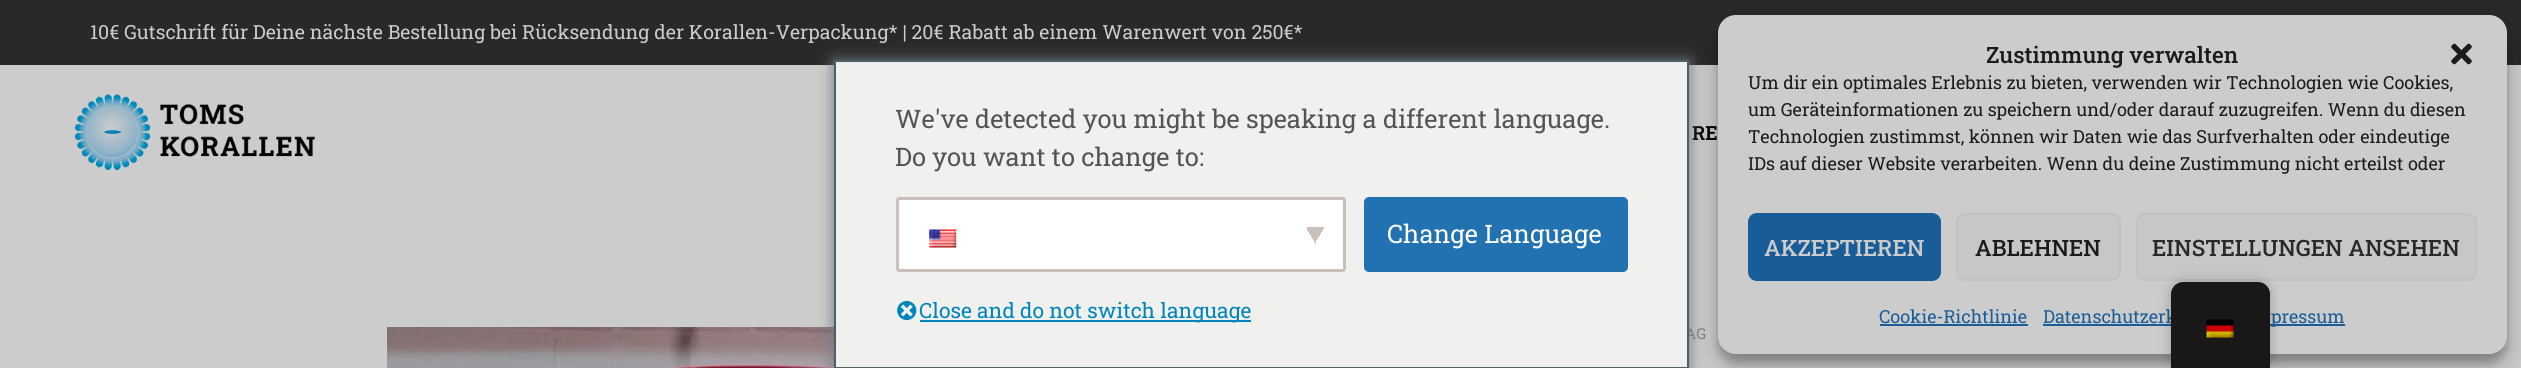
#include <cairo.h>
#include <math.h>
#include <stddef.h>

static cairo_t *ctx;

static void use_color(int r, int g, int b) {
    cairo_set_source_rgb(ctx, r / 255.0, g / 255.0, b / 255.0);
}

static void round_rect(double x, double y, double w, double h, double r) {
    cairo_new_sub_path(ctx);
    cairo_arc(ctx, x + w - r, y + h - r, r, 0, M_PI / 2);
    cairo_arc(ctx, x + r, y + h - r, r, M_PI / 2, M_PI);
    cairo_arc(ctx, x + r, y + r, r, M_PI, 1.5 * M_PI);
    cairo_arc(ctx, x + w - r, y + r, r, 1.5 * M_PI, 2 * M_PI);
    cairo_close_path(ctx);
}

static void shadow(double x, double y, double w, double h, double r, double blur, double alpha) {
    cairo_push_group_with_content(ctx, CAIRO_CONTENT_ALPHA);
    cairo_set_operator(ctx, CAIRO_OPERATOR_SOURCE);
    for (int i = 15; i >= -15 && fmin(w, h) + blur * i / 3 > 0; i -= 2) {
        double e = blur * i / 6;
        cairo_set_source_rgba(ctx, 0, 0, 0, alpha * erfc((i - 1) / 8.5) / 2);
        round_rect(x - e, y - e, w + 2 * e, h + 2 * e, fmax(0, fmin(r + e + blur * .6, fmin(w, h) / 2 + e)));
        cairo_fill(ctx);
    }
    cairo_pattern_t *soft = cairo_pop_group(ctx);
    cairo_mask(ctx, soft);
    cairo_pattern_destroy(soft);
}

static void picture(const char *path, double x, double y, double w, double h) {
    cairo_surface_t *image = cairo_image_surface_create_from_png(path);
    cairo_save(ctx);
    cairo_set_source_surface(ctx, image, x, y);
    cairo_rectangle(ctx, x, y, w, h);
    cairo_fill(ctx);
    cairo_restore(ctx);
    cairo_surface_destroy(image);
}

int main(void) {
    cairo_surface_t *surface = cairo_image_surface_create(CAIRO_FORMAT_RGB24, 2521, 368);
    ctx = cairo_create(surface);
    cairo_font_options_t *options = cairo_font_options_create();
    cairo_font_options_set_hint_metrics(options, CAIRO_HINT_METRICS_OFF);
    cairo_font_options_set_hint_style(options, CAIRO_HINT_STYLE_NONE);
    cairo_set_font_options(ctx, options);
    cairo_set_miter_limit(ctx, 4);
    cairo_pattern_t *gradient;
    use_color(204, 204, 204);
    cairo_paint(ctx);
    use_color(41, 41, 41);
    cairo_rectangle(ctx, 0, 0, 2521, 65);
    cairo_fill(ctx);
    cairo_select_font_face(ctx, "Roboto Slab", CAIRO_FONT_SLANT_NORMAL, CAIRO_FONT_WEIGHT_NORMAL);
    cairo_set_font_size(ctx, 19.5);
    use_color(204, 204, 204);
    cairo_move_to(ctx, 90, 39);
    cairo_show_text(ctx, "10€ Gutschrift für Deine nächste Bestellung bei Rücksendung der Korallen-Verpackung* | 20€ Rabatt ab einem Warenwert von 250€*");
    picture("img1.png", 75, 94, 240, 76);
    cairo_select_font_face(ctx, "Roboto Slab SemiBold", CAIRO_FONT_SLANT_NORMAL, CAIRO_FONT_WEIGHT_NORMAL);
    use_color(0, 0, 0);
    cairo_move_to(ctx, 1692, 140);
    cairo_show_text(ctx, "RE");
    picture("img2.png", 387, 327, 447, 41);
    cairo_select_font_face(ctx, "Roboto Slab", CAIRO_FONT_SLANT_NORMAL, CAIRO_FONT_WEIGHT_NORMAL);
    cairo_set_font_size(ctx, 15);
    use_color(129, 129, 129);
    cairo_move_to(ctx, 1685, 339);
    cairo_show_text(ctx, "AG");
    use_color(0, 0, 0);
    shadow(1718, 24, 789, 339, 18, 4.5, 0.23);
    shadow(1718, 30, 789, 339, 18, 15, 0.19);
    use_color(204, 204, 204);
    round_rect(1718, 15, 789, 339, 18);
    cairo_fill(ctx);
    cairo_select_font_face(ctx, "Roboto Slab Medium", CAIRO_FONT_SLANT_NORMAL, CAIRO_FONT_WEIGHT_NORMAL);
    cairo_set_font_size(ctx, 22.5);
    use_color(27, 27, 27);
    cairo_move_to(ctx, 1986, 63);
    cairo_show_text(ctx, "Zustimmung verwalten");
    picture("img3.png", 2451, 43, 21, 22);
    cairo_select_font_face(ctx, "Roboto Slab", CAIRO_FONT_SLANT_NORMAL, CAIRO_FONT_WEIGHT_NORMAL);
    cairo_set_font_size(ctx, 18);
    cairo_move_to(ctx, 1748, 89);
    cairo_show_text(ctx, "Um dir ein optimales Erlebnis zu bieten, verwenden wir Technologien wie Cookies,");
    cairo_move_to(ctx, 1748, 116);
    cairo_show_text(ctx, "um Geräteinformationen zu speichern und/oder darauf zuzugreifen. Wenn du diesen");
    cairo_move_to(ctx, 1748, 143);
    cairo_show_text(ctx, "Technologien zustimmst, können wir Daten wie das Surfverhalten oder eindeutige");
    cairo_move_to(ctx, 1748, 170);
    cairo_show_text(ctx, "IDs auf dieser Website verarbeiten. Wenn du deine Zustimmung nicht erteilst oder");
    use_color(24, 92, 152);
    round_rect(1749, 214, 191, 66, 8);
    cairo_fill_preserve(ctx);
    cairo_stroke(ctx);
    cairo_select_font_face(ctx, "Roboto Slab Medium", CAIRO_FONT_SLANT_NORMAL, CAIRO_FONT_WEIGHT_NORMAL);
    cairo_set_font_size(ctx, 22.5);
    use_color(204, 204, 204);
    cairo_move_to(ctx, 1764, 256);
    cairo_show_text(ctx, "AKZEPTIEREN");
    use_color(199, 199, 199);
    round_rect(1957, 214, 163, 66, 8);
    cairo_fill_preserve(ctx);
    use_color(194, 194, 194);
    cairo_stroke(ctx);
    use_color(27, 27, 27);
    cairo_move_to(ctx, 1975, 256);
    cairo_show_text(ctx, "ABLEHNEN");
    use_color(199, 199, 199);
    round_rect(2137, 214, 339, 66, 8);
    cairo_fill_preserve(ctx);
    use_color(194, 194, 194);
    cairo_stroke(ctx);
    use_color(41, 41, 41);
    cairo_move_to(ctx, 2152, 256);
    cairo_show_text(ctx, "EINSTELLUNGEN ANSEHEN");
    cairo_select_font_face(ctx, "Roboto Slab", CAIRO_FONT_SLANT_NORMAL, CAIRO_FONT_WEIGHT_NORMAL);
    cairo_set_font_size(ctx, 18);
    use_color(24, 92, 152);
    cairo_move_to(ctx, 1879, 323);
    cairo_show_text(ctx, "Cookie-Richtlinie");
    cairo_rectangle(ctx, 1880, 324, 148, 2);
    cairo_fill(ctx);
    cairo_move_to(ctx, 2043, 323);
    cairo_show_text(ctx, "Datenschutzerk");
    cairo_rectangle(ctx, 2043, 324, 128, 2);
    cairo_fill(ctx);
    cairo_rectangle(ctx, 2270, 324, 75, 2);
    cairo_fill(ctx);
    cairo_move_to(ctx, 2271, 323);
    cairo_show_text(ctx, "pressum");
    use_color(108, 119, 129);
    shadow(834, 60, 855, 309, 0, 7.5, 1);
    use_color(240, 240, 238);
    cairo_rectangle(ctx, 835, 61, 853, 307);
    cairo_fill_preserve(ctx);
    use_color(76, 96, 102);
    cairo_stroke(ctx);
    cairo_set_font_size(ctx, 25.5);
    use_color(84, 84, 84);
    cairo_move_to(ctx, 895, 128);
    cairo_show_text(ctx, "We've detected you might be speaking a different language.");
    cairo_move_to(ctx, 895, 166);
    cairo_show_text(ctx, "Do you want to change to:");
    use_color(255, 255, 255);
    round_rect(896, 197, 450, 75, 3);
    cairo_fill(ctx);
    gradient = cairo_pattern_create_linear(1312, 231, 1327, 240);
    cairo_pattern_add_color_stop_rgba(gradient, 0.5, 0.788, 0.753, 0.733, 1);
    cairo_pattern_add_color_stop_rgba(gradient, 0.5, 1, 1, 1, 1);
    cairo_set_source(ctx, gradient);
    cairo_pattern_destroy(gradient);
    cairo_rectangle(ctx, 1316, 227, 8, 13);
    cairo_fill(ctx);
    gradient = cairo_pattern_create_linear(1303, 240, 1318, 231);
    cairo_pattern_add_color_stop_rgba(gradient, 0.5, 1, 1, 1, 1);
    cairo_pattern_add_color_stop_rgba(gradient, 0.5, 0.788, 0.753, 0.733, 1);
    cairo_set_source(ctx, gradient);
    cairo_pattern_destroy(gradient);
    cairo_rectangle(ctx, 1307, 227, 9, 17);
    cairo_fill(ctx);
    round_rect(897.5, 198.5, 447, 72, 1.5);
    use_color(201, 192, 187);
    cairo_set_line_width(ctx, 3);
    cairo_stroke(ctx);
    picture("img4.png", 929, 229, 28, 19);
    use_color(34, 113, 177);
    round_rect(1365, 198, 262, 73, 4);
    cairo_fill_preserve(ctx);
    cairo_set_line_width(ctx, 2);
    cairo_stroke(ctx);
    use_color(255, 255, 255);
    cairo_move_to(ctx, 1387, 243);
    cairo_show_text(ctx, "Change Language");
    picture("img5.png", 897, 300, 20, 21);
    use_color(0, 133, 186);
    cairo_rectangle(ctx, 920, 320, 331, 2);
    cairo_fill(ctx);
    cairo_set_font_size(ctx, 21);
    cairo_move_to(ctx, 919, 318);
    cairo_show_text(ctx, "Close and do not switch language");
    use_color(0, 0, 0);
    shadow(2171, 282, 99, 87, 12, 6, 0.25);
    use_color(24, 24, 24);
    cairo_new_path(ctx);
    cairo_move_to(ctx, 2183, 282);
    cairo_line_to(ctx, 2258, 282);
    cairo_curve_to(ctx, 2264.5, 282, 2270, 287.5, 2270, 294);
    cairo_line_to(ctx, 2270, 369);
    cairo_line_to(ctx, 2171, 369);
    cairo_line_to(ctx, 2171, 294);
    cairo_curve_to(ctx, 2171, 287.5, 2176.5, 282, 2183, 282);
    cairo_close_path(ctx);
    cairo_fill(ctx);
    picture("img6.png", 2206, 319, 28, 19);
    cairo_surface_write_to_png(surface, "result.png");
    cairo_font_options_destroy(options);
    cairo_destroy(ctx);
    cairo_surface_destroy(surface);
    return 0;
}
